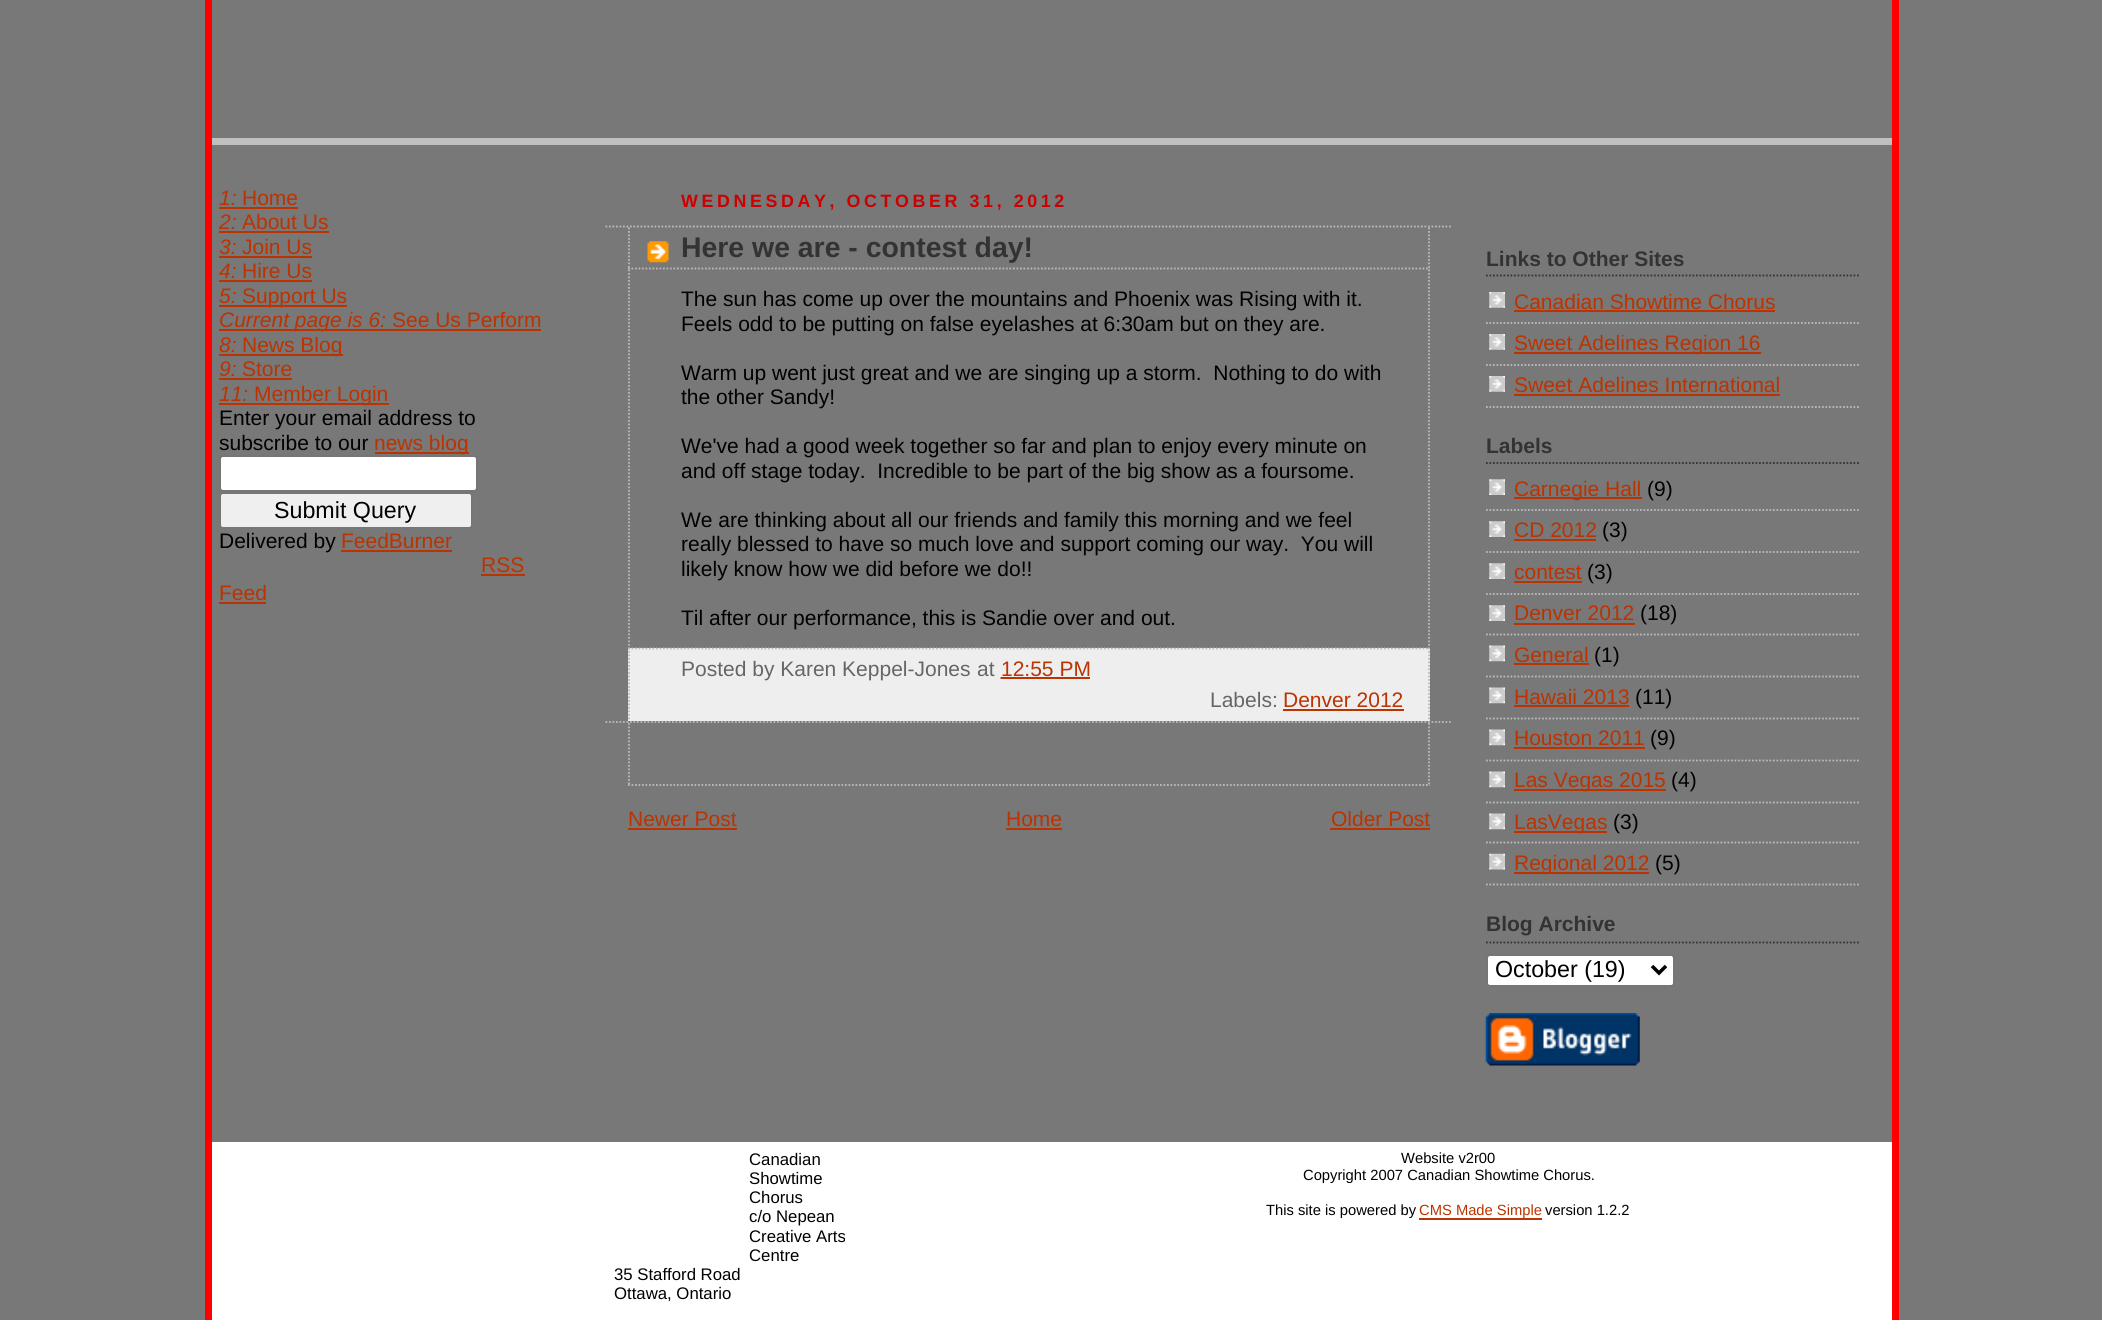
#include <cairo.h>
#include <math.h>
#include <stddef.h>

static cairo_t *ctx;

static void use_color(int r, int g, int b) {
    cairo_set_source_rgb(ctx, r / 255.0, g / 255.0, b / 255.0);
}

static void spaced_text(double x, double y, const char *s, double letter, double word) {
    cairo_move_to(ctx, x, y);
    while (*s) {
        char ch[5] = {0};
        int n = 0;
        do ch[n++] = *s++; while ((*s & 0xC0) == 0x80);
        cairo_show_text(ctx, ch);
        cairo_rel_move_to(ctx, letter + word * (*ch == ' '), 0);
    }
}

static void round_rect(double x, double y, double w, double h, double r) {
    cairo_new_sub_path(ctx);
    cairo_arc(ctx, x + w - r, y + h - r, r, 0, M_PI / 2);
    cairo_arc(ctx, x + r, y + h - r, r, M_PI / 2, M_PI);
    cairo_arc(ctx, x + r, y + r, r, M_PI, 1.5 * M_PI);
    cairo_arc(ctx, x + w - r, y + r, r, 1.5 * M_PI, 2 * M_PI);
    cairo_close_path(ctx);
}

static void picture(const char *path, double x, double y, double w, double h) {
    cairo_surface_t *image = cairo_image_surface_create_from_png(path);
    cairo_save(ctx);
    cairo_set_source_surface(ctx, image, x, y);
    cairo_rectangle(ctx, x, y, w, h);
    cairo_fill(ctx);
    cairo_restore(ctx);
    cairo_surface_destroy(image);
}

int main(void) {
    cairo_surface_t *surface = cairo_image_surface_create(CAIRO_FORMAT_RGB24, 2102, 1320);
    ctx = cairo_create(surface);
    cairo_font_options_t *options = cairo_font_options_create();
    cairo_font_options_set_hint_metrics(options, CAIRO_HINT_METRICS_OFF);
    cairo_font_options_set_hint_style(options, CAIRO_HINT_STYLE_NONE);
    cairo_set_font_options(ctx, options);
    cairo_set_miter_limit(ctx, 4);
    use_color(120, 120, 120);
    cairo_paint(ctx);
    use_color(255, 0, 0);
    cairo_rectangle(ctx, 1892, 0, 7, 1320);
    cairo_fill(ctx);
    cairo_rectangle(ctx, 205, 0, 7, 1320);
    cairo_fill(ctx);
    use_color(192, 192, 192);
    cairo_rectangle(ctx, 212, 138, 1680, 7);
    cairo_fill(ctx);
    cairo_select_font_face(ctx, "Liberation Sans", CAIRO_FONT_SLANT_ITALIC, CAIRO_FONT_WEIGHT_NORMAL);
    cairo_set_font_size(ctx, 21);
    use_color(187, 51, 0);
    cairo_move_to(ctx, 219, 205);
    cairo_show_text(ctx, "1:");
    cairo_select_font_face(ctx, "Liberation Sans", CAIRO_FONT_SLANT_NORMAL, CAIRO_FONT_WEIGHT_NORMAL);
    cairo_move_to(ctx, 242, 205);
    cairo_show_text(ctx, "Home");
    cairo_rectangle(ctx, 219, 207, 79, 2);
    cairo_fill(ctx);
    cairo_select_font_face(ctx, "Liberation Sans", CAIRO_FONT_SLANT_ITALIC, CAIRO_FONT_WEIGHT_NORMAL);
    cairo_move_to(ctx, 219, 229);
    cairo_show_text(ctx, "2:");
    cairo_rectangle(ctx, 219, 231, 110, 2);
    cairo_fill(ctx);
    cairo_select_font_face(ctx, "Liberation Sans", CAIRO_FONT_SLANT_NORMAL, CAIRO_FONT_WEIGHT_NORMAL);
    cairo_move_to(ctx, 242, 229);
    cairo_show_text(ctx, "About Us");
    cairo_select_font_face(ctx, "Liberation Sans", CAIRO_FONT_SLANT_ITALIC, CAIRO_FONT_WEIGHT_NORMAL);
    cairo_move_to(ctx, 219, 254);
    cairo_show_text(ctx, "3:");
    cairo_rectangle(ctx, 219, 256, 93, 2);
    cairo_fill(ctx);
    cairo_select_font_face(ctx, "Liberation Sans", CAIRO_FONT_SLANT_NORMAL, CAIRO_FONT_WEIGHT_NORMAL);
    cairo_move_to(ctx, 242, 254);
    cairo_show_text(ctx, "Join Us");
    cairo_select_font_face(ctx, "Liberation Sans", CAIRO_FONT_SLANT_ITALIC, CAIRO_FONT_WEIGHT_NORMAL);
    cairo_move_to(ctx, 219, 278);
    cairo_show_text(ctx, "4:");
    cairo_rectangle(ctx, 219, 280, 93, 2);
    cairo_fill(ctx);
    cairo_select_font_face(ctx, "Liberation Sans", CAIRO_FONT_SLANT_NORMAL, CAIRO_FONT_WEIGHT_NORMAL);
    cairo_move_to(ctx, 242, 278);
    cairo_show_text(ctx, "Hire Us");
    cairo_select_font_face(ctx, "Liberation Sans", CAIRO_FONT_SLANT_ITALIC, CAIRO_FONT_WEIGHT_NORMAL);
    cairo_move_to(ctx, 219, 303);
    cairo_show_text(ctx, "5:");
    cairo_rectangle(ctx, 219, 305, 128, 2);
    cairo_fill(ctx);
    cairo_select_font_face(ctx, "Liberation Sans", CAIRO_FONT_SLANT_NORMAL, CAIRO_FONT_WEIGHT_NORMAL);
    cairo_move_to(ctx, 242, 303);
    cairo_show_text(ctx, "Support Us");
    cairo_rectangle(ctx, 219, 329, 322, 2);
    cairo_fill(ctx);
    cairo_select_font_face(ctx, "Liberation Sans", CAIRO_FONT_SLANT_ITALIC, CAIRO_FONT_WEIGHT_NORMAL);
    cairo_move_to(ctx, 219, 327);
    cairo_show_text(ctx, "Current page is 6:");
    cairo_select_font_face(ctx, "Liberation Sans", CAIRO_FONT_SLANT_NORMAL, CAIRO_FONT_WEIGHT_NORMAL);
    cairo_move_to(ctx, 392, 327);
    cairo_show_text(ctx, "See Us Perform");
    cairo_select_font_face(ctx, "Liberation Sans", CAIRO_FONT_SLANT_ITALIC, CAIRO_FONT_WEIGHT_NORMAL);
    cairo_move_to(ctx, 219, 352);
    cairo_show_text(ctx, "8:");
    cairo_rectangle(ctx, 219, 354, 124, 2);
    cairo_fill(ctx);
    cairo_select_font_face(ctx, "Liberation Sans", CAIRO_FONT_SLANT_NORMAL, CAIRO_FONT_WEIGHT_NORMAL);
    cairo_move_to(ctx, 242, 352);
    cairo_show_text(ctx, "News Blog");
    cairo_select_font_face(ctx, "Liberation Sans", CAIRO_FONT_SLANT_ITALIC, CAIRO_FONT_WEIGHT_NORMAL);
    cairo_move_to(ctx, 219, 376);
    cairo_show_text(ctx, "9:");
    cairo_rectangle(ctx, 219, 378, 73, 2);
    cairo_fill(ctx);
    cairo_select_font_face(ctx, "Liberation Sans", CAIRO_FONT_SLANT_NORMAL, CAIRO_FONT_WEIGHT_NORMAL);
    cairo_move_to(ctx, 242, 376);
    cairo_show_text(ctx, "Store");
    cairo_select_font_face(ctx, "Liberation Sans", CAIRO_FONT_SLANT_ITALIC, CAIRO_FONT_WEIGHT_NORMAL);
    cairo_move_to(ctx, 219, 401);
    cairo_show_text(ctx, "11:");
    cairo_rectangle(ctx, 219, 403, 170, 2);
    cairo_fill(ctx);
    cairo_select_font_face(ctx, "Liberation Sans", CAIRO_FONT_SLANT_NORMAL, CAIRO_FONT_WEIGHT_NORMAL);
    cairo_move_to(ctx, 254, 401);
    cairo_show_text(ctx, "Member Login");
    use_color(0, 0, 0);
    cairo_move_to(ctx, 219, 425);
    cairo_show_text(ctx, "Enter your email address to");
    cairo_move_to(ctx, 219, 450);
    cairo_show_text(ctx, "subscribe to our");
    use_color(187, 51, 0);
    cairo_rectangle(ctx, 375, 452, 94, 2);
    cairo_fill(ctx);
    cairo_move_to(ctx, 374, 450);
    cairo_show_text(ctx, "news blog");
    use_color(255, 255, 255);
    round_rect(220, 456, 257, 35, 3);
    cairo_fill_preserve(ctx);
    use_color(118, 118, 118);
    cairo_stroke(ctx);
    use_color(239, 239, 239);
    round_rect(220, 493, 252, 35, 3);
    cairo_fill_preserve(ctx);
    use_color(118, 118, 118);
    cairo_stroke(ctx);
    cairo_set_font_size(ctx, 23.25);
    use_color(0, 0, 0);
    cairo_move_to(ctx, 274, 518);
    cairo_show_text(ctx, "Submit Query");
    cairo_set_font_size(ctx, 21);
    cairo_move_to(ctx, 219, 548);
    cairo_show_text(ctx, "Delivered by");
    use_color(187, 51, 0);
    cairo_move_to(ctx, 341, 548);
    cairo_show_text(ctx, "FeedBurner");
    cairo_rectangle(ctx, 341, 550, 111, 2);
    cairo_fill(ctx);
    cairo_move_to(ctx, 481, 572);
    cairo_show_text(ctx, "RSS");
    cairo_rectangle(ctx, 481, 574, 44, 2);
    cairo_fill(ctx);
    cairo_move_to(ctx, 219, 600);
    cairo_show_text(ctx, "Feed");
    cairo_rectangle(ctx, 219, 602, 47, 2);
    cairo_fill(ctx);
    cairo_select_font_face(ctx, "Liberation Sans", CAIRO_FONT_SLANT_NORMAL, CAIRO_FONT_WEIGHT_BOLD);
    cairo_set_font_size(ctx, 17.85);
    use_color(204, 0, 0);
    spaced_text(681, 207, "WEDNESDAY, OCTOBER 31, 2012", 3.6, 0);
    cairo_new_path(ctx);
    cairo_move_to(ctx, 605.5, 226.5);
    cairo_line_to(ctx, 1452.5, 226.5);
    use_color(187, 187, 187);
    cairo_set_line_width(ctx, 1.8);
    cairo_set_dash(ctx, (double[]){1.75, 1.75}, 2, 0);
    cairo_stroke(ctx);
    cairo_new_path(ctx);
    cairo_move_to(ctx, 605.5, 722);
    cairo_line_to(ctx, 1452.5, 722);
    cairo_stroke(ctx);
    picture("img1.png", 647, 241, 22, 22);
    cairo_new_path(ctx);
    cairo_move_to(ctx, 1429, 227.5);
    cairo_line_to(ctx, 1429, 269.5);
    cairo_stroke(ctx);
    cairo_new_path(ctx);
    cairo_move_to(ctx, 628, 268.5);
    cairo_line_to(ctx, 1430, 268.5);
    cairo_stroke(ctx);
    cairo_new_path(ctx);
    cairo_move_to(ctx, 629, 227.5);
    cairo_line_to(ctx, 629, 269.5);
    cairo_stroke(ctx);
    cairo_set_font_size(ctx, 28.4);
    use_color(51, 51, 51);
    cairo_move_to(ctx, 681, 257);
    cairo_show_text(ctx, "Here we are - contest day!");
    cairo_new_path(ctx);
    cairo_move_to(ctx, 1429, 269.5);
    cairo_line_to(ctx, 1429, 647.5);
    use_color(187, 187, 187);
    cairo_stroke(ctx);
    cairo_new_path(ctx);
    cairo_move_to(ctx, 629, 269.5);
    cairo_line_to(ctx, 629, 647.5);
    cairo_stroke(ctx);
    cairo_select_font_face(ctx, "Liberation Sans", CAIRO_FONT_SLANT_NORMAL, CAIRO_FONT_WEIGHT_NORMAL);
    cairo_set_font_size(ctx, 21);
    use_color(0, 0, 0);
    cairo_move_to(ctx, 681, 306);
    cairo_show_text(ctx, "The sun has come up over the mountains and Phoenix was Rising with it.");
    cairo_move_to(ctx, 681, 331);
    cairo_show_text(ctx, "Feels odd to be putting on false eyelashes at 6:30am but on they are.");
    cairo_move_to(ctx, 681, 380);
    cairo_show_text(ctx, "Warm up went just great and we are singing up a storm.  Nothing to do with");
    cairo_move_to(ctx, 681, 404);
    cairo_show_text(ctx, "the other Sandy!");
    cairo_move_to(ctx, 681, 453);
    cairo_show_text(ctx, "We've had a good week together so far and plan to enjoy every minute on");
    cairo_move_to(ctx, 681, 478);
    cairo_show_text(ctx, "and off stage today.  Incredible to be part of the big show as a foursome.");
    cairo_move_to(ctx, 681, 527);
    cairo_show_text(ctx, "We are thinking about all our friends and family this morning and we feel");
    cairo_move_to(ctx, 681, 551);
    cairo_show_text(ctx, "really blessed to have so much love and support coming our way.  You will");
    cairo_move_to(ctx, 681, 576);
    cairo_show_text(ctx, "likely know how we did before we do!!");
    cairo_move_to(ctx, 681, 625);
    cairo_show_text(ctx, "Til after our performance, this is Sandie over and out.");
    use_color(238, 238, 238);
    cairo_rectangle(ctx, 628, 648, 802, 73);
    cairo_fill(ctx);
    cairo_new_path(ctx);
    cairo_move_to(ctx, 628, 648.5);
    cairo_line_to(ctx, 1430, 648.5);
    use_color(187, 187, 187);
    cairo_stroke(ctx);
    cairo_new_path(ctx);
    cairo_move_to(ctx, 1429, 647.5);
    cairo_line_to(ctx, 1429, 721);
    cairo_stroke(ctx);
    cairo_new_path(ctx);
    cairo_move_to(ctx, 629, 647.5);
    cairo_line_to(ctx, 629, 721);
    cairo_stroke(ctx);
    use_color(102, 102, 102);
    cairo_move_to(ctx, 681, 676);
    cairo_show_text(ctx, "Posted by Karen Keppel-Jones");
    cairo_move_to(ctx, 977, 676);
    cairo_show_text(ctx, "at");
    use_color(187, 51, 0);
    cairo_move_to(ctx, 1001, 676);
    cairo_show_text(ctx, "12:55 PM");
    cairo_new_path(ctx);
    cairo_move_to(ctx, 1000.5, 678);
    cairo_line_to(ctx, 1090.5, 678);
    cairo_stroke(ctx);
    cairo_rectangle(ctx, 1001, 677, 89, 2);
    cairo_fill(ctx);
    use_color(102, 102, 102);
    cairo_move_to(ctx, 1210, 707);
    cairo_show_text(ctx, "Labels:");
    use_color(187, 51, 0);
    cairo_move_to(ctx, 1283, 707);
    cairo_show_text(ctx, "Denver 2012");
    cairo_rectangle(ctx, 1283, 709, 121, 2);
    cairo_fill(ctx);
    cairo_new_path(ctx);
    cairo_move_to(ctx, 1429, 723);
    cairo_line_to(ctx, 1429, 786);
    use_color(187, 187, 187);
    cairo_stroke(ctx);
    cairo_new_path(ctx);
    cairo_move_to(ctx, 628, 785);
    cairo_line_to(ctx, 1430, 785);
    cairo_stroke(ctx);
    cairo_new_path(ctx);
    cairo_move_to(ctx, 629, 723);
    cairo_line_to(ctx, 629, 786);
    cairo_stroke(ctx);
    use_color(187, 51, 0);
    cairo_move_to(ctx, 628, 826);
    cairo_show_text(ctx, "Newer Post");
    cairo_rectangle(ctx, 628, 828, 109, 2);
    cairo_fill(ctx);
    cairo_move_to(ctx, 1006, 826);
    cairo_show_text(ctx, "Home");
    cairo_rectangle(ctx, 1006, 828, 56, 2);
    cairo_fill(ctx);
    cairo_move_to(ctx, 1331, 826);
    cairo_show_text(ctx, "Older Post");
    cairo_rectangle(ctx, 1330, 828, 100, 2);
    cairo_fill(ctx);
    cairo_new_path(ctx);
    cairo_move_to(ctx, 1486, 275.5);
    cairo_line_to(ctx, 1860, 275.5);
    use_color(51, 51, 51);
    cairo_stroke(ctx);
    cairo_select_font_face(ctx, "Liberation Sans", CAIRO_FONT_SLANT_NORMAL, CAIRO_FONT_WEIGHT_BOLD);
    cairo_move_to(ctx, 1486, 266);
    cairo_show_text(ctx, "Links to Other Sites");
    picture("img2.png", 1489, 292, 16, 16);
    cairo_new_path(ctx);
    cairo_move_to(ctx, 1486, 323);
    cairo_line_to(ctx, 1860, 323);
    use_color(187, 187, 187);
    cairo_stroke(ctx);
    cairo_select_font_face(ctx, "Liberation Sans", CAIRO_FONT_SLANT_NORMAL, CAIRO_FONT_WEIGHT_NORMAL);
    use_color(187, 51, 0);
    cairo_move_to(ctx, 1514, 309);
    cairo_show_text(ctx, "Canadian Showtime Chorus");
    cairo_rectangle(ctx, 1514, 310, 261, 2);
    cairo_fill(ctx);
    picture("img2.png", 1489, 334, 16, 16);
    cairo_new_path(ctx);
    cairo_move_to(ctx, 1486, 365);
    cairo_line_to(ctx, 1860, 365);
    use_color(187, 187, 187);
    cairo_stroke(ctx);
    use_color(187, 51, 0);
    cairo_rectangle(ctx, 1514, 352, 247, 2);
    cairo_fill(ctx);
    cairo_move_to(ctx, 1514, 350);
    cairo_show_text(ctx, "Sweet Adelines Region 16");
    picture("img2.png", 1489, 376, 16, 16);
    cairo_new_path(ctx);
    cairo_move_to(ctx, 1486, 407);
    cairo_line_to(ctx, 1860, 407);
    use_color(187, 187, 187);
    cairo_stroke(ctx);
    use_color(187, 51, 0);
    cairo_move_to(ctx, 1514, 392);
    cairo_show_text(ctx, "Sweet Adelines International");
    cairo_rectangle(ctx, 1514, 394, 266, 2);
    cairo_fill(ctx);
    cairo_new_path(ctx);
    cairo_move_to(ctx, 1486, 463);
    cairo_line_to(ctx, 1860, 463);
    use_color(51, 51, 51);
    cairo_stroke(ctx);
    cairo_select_font_face(ctx, "Liberation Sans", CAIRO_FONT_SLANT_NORMAL, CAIRO_FONT_WEIGHT_BOLD);
    cairo_move_to(ctx, 1486, 453);
    cairo_show_text(ctx, "Labels");
    picture("img3.png", 1489, 479, 16, 16);
    cairo_new_path(ctx);
    cairo_move_to(ctx, 1486, 510);
    cairo_line_to(ctx, 1860, 510);
    use_color(187, 187, 187);
    cairo_stroke(ctx);
    use_color(187, 51, 0);
    cairo_rectangle(ctx, 1514, 497, 128, 2);
    cairo_fill(ctx);
    cairo_select_font_face(ctx, "Liberation Sans", CAIRO_FONT_SLANT_NORMAL, CAIRO_FONT_WEIGHT_NORMAL);
    cairo_move_to(ctx, 1514, 496);
    cairo_show_text(ctx, "Carnegie Hall");
    use_color(0, 0, 0);
    cairo_move_to(ctx, 1647, 496);
    cairo_show_text(ctx, "(9)");
    picture("img3.png", 1489, 521, 16, 16);
    cairo_new_path(ctx);
    cairo_move_to(ctx, 1486, 552);
    cairo_line_to(ctx, 1860, 552);
    use_color(187, 187, 187);
    cairo_stroke(ctx);
    use_color(187, 51, 0);
    cairo_move_to(ctx, 1514, 537);
    cairo_show_text(ctx, "CD 2012");
    cairo_rectangle(ctx, 1514, 539, 82, 2);
    cairo_fill(ctx);
    use_color(0, 0, 0);
    cairo_move_to(ctx, 1602, 537);
    cairo_show_text(ctx, "(3)");
    picture("img3.png", 1489, 563, 16, 16);
    cairo_new_path(ctx);
    cairo_move_to(ctx, 1486, 594);
    cairo_line_to(ctx, 1860, 594);
    use_color(187, 187, 187);
    cairo_stroke(ctx);
    use_color(187, 51, 0);
    cairo_move_to(ctx, 1514, 579);
    cairo_show_text(ctx, "contest");
    cairo_rectangle(ctx, 1514, 581, 68, 2);
    cairo_fill(ctx);
    use_color(0, 0, 0);
    cairo_move_to(ctx, 1587, 579);
    cairo_show_text(ctx, "(3)");
    picture("img3.png", 1489, 605, 16, 16);
    cairo_new_path(ctx);
    cairo_move_to(ctx, 1486, 634.5);
    cairo_line_to(ctx, 1860, 634.5);
    use_color(187, 187, 187);
    cairo_stroke(ctx);
    use_color(187, 51, 0);
    cairo_move_to(ctx, 1514, 620);
    cairo_show_text(ctx, "Denver 2012");
    cairo_rectangle(ctx, 1514, 623, 121, 2);
    cairo_fill(ctx);
    use_color(0, 0, 0);
    cairo_move_to(ctx, 1640, 620);
    cairo_show_text(ctx, "(18)");
    picture("img4.png", 1489, 645, 16, 17);
    cairo_new_path(ctx);
    cairo_move_to(ctx, 1486, 676.5);
    cairo_line_to(ctx, 1860, 676.5);
    use_color(187, 187, 187);
    cairo_stroke(ctx);
    use_color(187, 51, 0);
    cairo_move_to(ctx, 1514, 662);
    cairo_show_text(ctx, "General");
    cairo_rectangle(ctx, 1514, 663, 75, 2);
    cairo_fill(ctx);
    use_color(0, 0, 0);
    cairo_move_to(ctx, 1594, 662);
    cairo_show_text(ctx, "(1)");
    picture("img4.png", 1489, 687, 16, 17);
    cairo_new_path(ctx);
    cairo_move_to(ctx, 1486, 718.5);
    cairo_line_to(ctx, 1860, 718.5);
    use_color(187, 187, 187);
    cairo_stroke(ctx);
    use_color(187, 51, 0);
    cairo_move_to(ctx, 1514, 704);
    cairo_show_text(ctx, "Hawaii 2013");
    cairo_rectangle(ctx, 1514, 705, 115, 2);
    cairo_fill(ctx);
    use_color(0, 0, 0);
    cairo_move_to(ctx, 1635, 704);
    cairo_show_text(ctx, "(11)");
    picture("img4.png", 1489, 729, 16, 17);
    cairo_new_path(ctx);
    cairo_move_to(ctx, 1486, 760.5);
    cairo_line_to(ctx, 1860, 760.5);
    use_color(187, 187, 187);
    cairo_stroke(ctx);
    use_color(187, 51, 0);
    cairo_move_to(ctx, 1514, 745);
    cairo_show_text(ctx, "Houston 2011");
    cairo_rectangle(ctx, 1514, 747, 131, 2);
    cairo_fill(ctx);
    use_color(0, 0, 0);
    cairo_move_to(ctx, 1650, 745);
    cairo_show_text(ctx, "(9)");
    picture("img4.png", 1489, 771, 16, 17);
    cairo_new_path(ctx);
    cairo_move_to(ctx, 1486, 802.5);
    cairo_line_to(ctx, 1860, 802.5);
    use_color(187, 187, 187);
    cairo_stroke(ctx);
    use_color(187, 51, 0);
    cairo_rectangle(ctx, 1514, 789, 152, 2);
    cairo_fill(ctx);
    cairo_move_to(ctx, 1514, 787);
    cairo_show_text(ctx, "Las Vegas 2015");
    use_color(0, 0, 0);
    cairo_move_to(ctx, 1671, 787);
    cairo_show_text(ctx, "(4)");
    picture("img4.png", 1489, 813, 16, 17);
    cairo_new_path(ctx);
    cairo_move_to(ctx, 1486, 842.5);
    cairo_line_to(ctx, 1860, 842.5);
    use_color(187, 187, 187);
    cairo_stroke(ctx);
    use_color(187, 51, 0);
    cairo_rectangle(ctx, 1514, 831, 93, 2);
    cairo_fill(ctx);
    cairo_move_to(ctx, 1514, 829);
    cairo_show_text(ctx, "LasVegas");
    use_color(0, 0, 0);
    cairo_move_to(ctx, 1613, 829);
    cairo_show_text(ctx, "(3)");
    picture("img5.png", 1489, 853, 16, 17);
    cairo_new_path(ctx);
    cairo_move_to(ctx, 1486, 884.5);
    cairo_line_to(ctx, 1860, 884.5);
    use_color(187, 187, 187);
    cairo_stroke(ctx);
    use_color(187, 51, 0);
    cairo_rectangle(ctx, 1514, 872, 135, 2);
    cairo_fill(ctx);
    cairo_move_to(ctx, 1514, 870);
    cairo_show_text(ctx, "Regional 2012");
    use_color(0, 0, 0);
    cairo_move_to(ctx, 1655, 870);
    cairo_show_text(ctx, "(5)");
    cairo_new_path(ctx);
    cairo_move_to(ctx, 1486, 942.5);
    cairo_line_to(ctx, 1860, 942.5);
    use_color(51, 51, 51);
    cairo_stroke(ctx);
    cairo_select_font_face(ctx, "Liberation Sans", CAIRO_FONT_SLANT_NORMAL, CAIRO_FONT_WEIGHT_BOLD);
    cairo_move_to(ctx, 1486, 931);
    cairo_show_text(ctx, "Blog Archive");
    use_color(255, 255, 255);
    round_rect(1487, 955, 187, 31, 3);
    cairo_fill_preserve(ctx);
    use_color(118, 118, 118);
    cairo_set_line_width(ctx, 2);
    cairo_set_dash(ctx, NULL, 0, 0);
    cairo_stroke(ctx);
    cairo_new_path(ctx);
    cairo_move_to(ctx, 1652, 966);
    cairo_line_to(ctx, 1659, 973);
    cairo_line_to(ctx, 1666, 966);
    use_color(0, 0, 0);
    cairo_set_line_width(ctx, 3.5);
    cairo_stroke(ctx);
    cairo_select_font_face(ctx, "Liberation Sans", CAIRO_FONT_SLANT_NORMAL, CAIRO_FONT_WEIGHT_NORMAL);
    cairo_set_font_size(ctx, 23.25);
    cairo_move_to(ctx, 1495, 977);
    cairo_show_text(ctx, "October (19)");
    picture("img6.png", 1485, 1013, 155, 53);
    use_color(255, 255, 255);
    cairo_rectangle(ctx, 212, 1142, 1680, 178);
    cairo_fill(ctx);
    cairo_set_font_size(ctx, 16.75);
    use_color(0, 0, 0);
    cairo_move_to(ctx, 749, 1165);
    cairo_show_text(ctx, "Canadian");
    cairo_move_to(ctx, 749, 1184);
    cairo_show_text(ctx, "Showtime");
    cairo_move_to(ctx, 749, 1203);
    cairo_show_text(ctx, "Chorus");
    cairo_move_to(ctx, 749, 1222);
    cairo_show_text(ctx, "c/o Nepean");
    cairo_move_to(ctx, 749, 1242);
    cairo_show_text(ctx, "Creative Arts");
    cairo_move_to(ctx, 749, 1261);
    cairo_show_text(ctx, "Centre");
    cairo_move_to(ctx, 614, 1280);
    cairo_show_text(ctx, "35 Stafford Road");
    cairo_move_to(ctx, 614, 1299);
    cairo_show_text(ctx, "Ottawa, Ontario");
    cairo_set_font_size(ctx, 14.75);
    cairo_move_to(ctx, 1401, 1163);
    cairo_show_text(ctx, "Website v2r00");
    cairo_move_to(ctx, 1303, 1180);
    cairo_show_text(ctx, "Copyright 2007 Canadian Showtime Chorus.");
    cairo_move_to(ctx, 1266, 1215);
    cairo_show_text(ctx, "This site is powered by");
    use_color(187, 51, 0);
    cairo_rectangle(ctx, 1419, 1218, 123, 2);
    cairo_fill(ctx);
    cairo_move_to(ctx, 1419, 1215);
    cairo_show_text(ctx, "CMS Made Simple");
    use_color(0, 0, 0);
    cairo_move_to(ctx, 1545, 1215);
    cairo_show_text(ctx, "version 1.2.2");
    cairo_surface_write_to_png(surface, "result.png");
    cairo_font_options_destroy(options);
    cairo_destroy(ctx);
    cairo_surface_destroy(surface);
    return 0;
}
